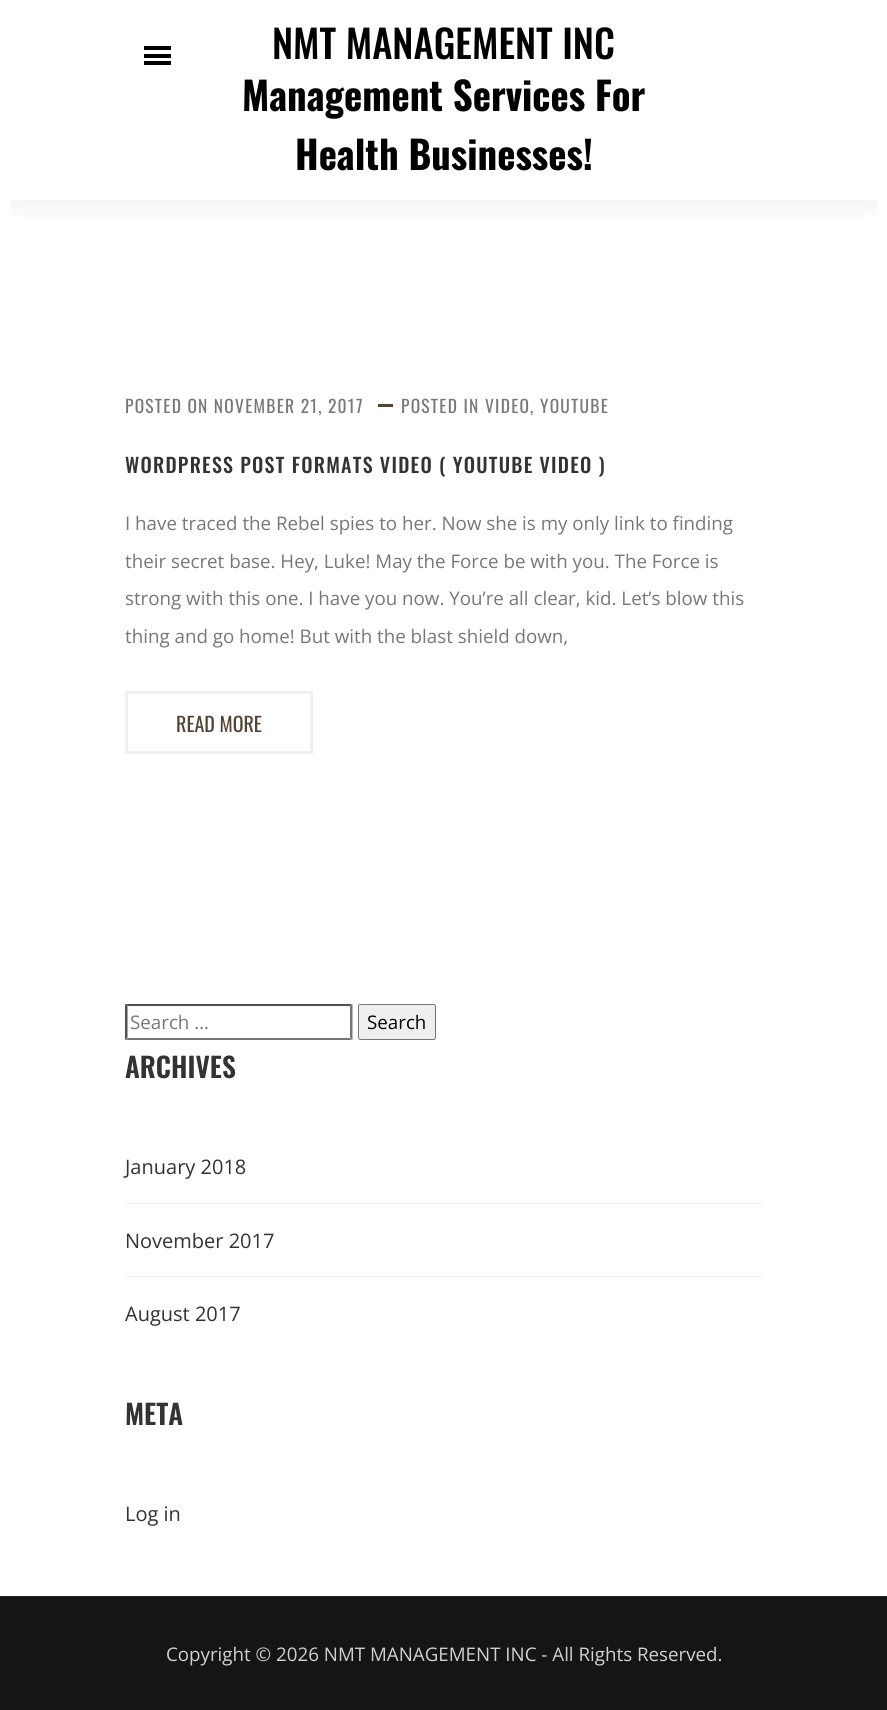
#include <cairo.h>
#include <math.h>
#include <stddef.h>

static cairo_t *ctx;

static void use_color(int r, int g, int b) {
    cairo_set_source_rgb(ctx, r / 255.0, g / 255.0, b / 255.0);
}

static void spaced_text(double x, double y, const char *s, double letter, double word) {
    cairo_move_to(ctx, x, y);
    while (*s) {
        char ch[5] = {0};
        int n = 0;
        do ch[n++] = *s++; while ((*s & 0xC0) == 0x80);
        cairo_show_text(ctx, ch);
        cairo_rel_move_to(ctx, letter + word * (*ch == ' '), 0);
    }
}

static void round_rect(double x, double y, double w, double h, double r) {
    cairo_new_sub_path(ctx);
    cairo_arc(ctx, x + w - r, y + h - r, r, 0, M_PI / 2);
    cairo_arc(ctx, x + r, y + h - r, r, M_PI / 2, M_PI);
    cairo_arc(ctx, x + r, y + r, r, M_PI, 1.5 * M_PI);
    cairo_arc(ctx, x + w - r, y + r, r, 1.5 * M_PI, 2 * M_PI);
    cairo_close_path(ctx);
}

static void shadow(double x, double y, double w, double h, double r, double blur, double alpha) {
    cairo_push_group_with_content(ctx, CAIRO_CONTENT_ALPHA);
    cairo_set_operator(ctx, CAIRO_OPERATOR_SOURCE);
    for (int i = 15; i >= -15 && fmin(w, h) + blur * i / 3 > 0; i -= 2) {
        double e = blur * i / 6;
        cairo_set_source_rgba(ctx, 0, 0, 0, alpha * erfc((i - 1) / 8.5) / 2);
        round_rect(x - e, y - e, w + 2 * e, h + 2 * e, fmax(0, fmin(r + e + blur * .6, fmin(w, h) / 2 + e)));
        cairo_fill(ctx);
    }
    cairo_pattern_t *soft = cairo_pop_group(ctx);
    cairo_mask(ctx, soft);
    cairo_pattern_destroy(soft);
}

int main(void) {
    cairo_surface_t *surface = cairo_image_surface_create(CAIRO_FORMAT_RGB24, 887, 1710);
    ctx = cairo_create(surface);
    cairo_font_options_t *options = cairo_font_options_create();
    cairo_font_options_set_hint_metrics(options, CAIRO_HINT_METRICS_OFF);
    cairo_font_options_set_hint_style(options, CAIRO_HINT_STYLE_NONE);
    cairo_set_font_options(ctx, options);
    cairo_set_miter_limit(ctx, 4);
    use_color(255, 255, 255);
    cairo_paint(ctx);
    cairo_save(ctx);
    cairo_rectangle(ctx, 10, 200, 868, 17);
    cairo_clip(ctx);
    use_color(35, 35, 35);
    shadow(15, 31, 858, 170, 0, 19, 0.1);
    cairo_restore(ctx);
    use_color(0, 0, 0);
    cairo_rectangle(ctx, 144, 46, 27, 4);
    cairo_fill(ctx);
    cairo_rectangle(ctx, 144, 54, 27, 4);
    cairo_fill(ctx);
    cairo_rectangle(ctx, 144, 61, 27, 4);
    cairo_fill(ctx);
    cairo_select_font_face(ctx, "Oswald Medium", CAIRO_FONT_SLANT_NORMAL, CAIRO_FONT_WEIGHT_NORMAL);
    cairo_set_font_size(ctx, 38.75);
    cairo_move_to(ctx, 272, 59);
    cairo_show_text(ctx, "NMT MANAGEMENT INC");
    cairo_select_font_face(ctx, "Oswald", CAIRO_FONT_SLANT_NORMAL, CAIRO_FONT_WEIGHT_BOLD);
    cairo_move_to(ctx, 242, 111);
    cairo_show_text(ctx, "Management Services For");
    cairo_move_to(ctx, 295, 170);
    cairo_show_text(ctx, "Health Businesses!");
    cairo_select_font_face(ctx, "Oswald", CAIRO_FONT_SLANT_NORMAL, CAIRO_FONT_WEIGHT_NORMAL);
    cairo_set_font_size(ctx, 17.5);
    use_color(119, 119, 119);
    spaced_text(125, 413, "POSTED ON NOVEMBER 21, 2017", 1.25, 0);
    use_color(84, 68, 53);
    cairo_rectangle(ctx, 378, 404, 15, 3);
    cairo_fill(ctx);
    use_color(119, 119, 119);
    spaced_text(401, 413, "POSTED IN", 1.25, 0);
    use_color(125, 119, 119);
    spaced_text(485, 413, "VIDEO", 1.25, 0);
    use_color(119, 119, 119);
    spaced_text(530, 413, ",", 1.25, 0);
    use_color(125, 119, 119);
    spaced_text(540, 413, "YOUTUBE", 1.25, 0);
    cairo_select_font_face(ctx, "Oswald Medium", CAIRO_FONT_SLANT_NORMAL, CAIRO_FONT_WEIGHT_NORMAL);
    cairo_set_font_size(ctx, 20);
    use_color(51, 51, 51);
    spaced_text(125, 473, "WORDPRESS POST FORMATS VIDEO ( YOUTUBE VIDEO )", 1.25, 0);
    cairo_select_font_face(ctx, "Open Sans", CAIRO_FONT_SLANT_NORMAL, CAIRO_FONT_WEIGHT_NORMAL);
    cairo_set_font_size(ctx, 18.75);
    use_color(119, 119, 119);
    cairo_move_to(ctx, 125, 530);
    cairo_show_text(ctx, "I have traced the Rebel spies to her. Now she is my only link to finding");
    cairo_move_to(ctx, 125, 568);
    cairo_show_text(ctx, "their secret base. Hey, Luke! May the Force be with you. The Force is");
    cairo_move_to(ctx, 125, 605);
    cairo_show_text(ctx, "strong with this one. I have you now. You’re all clear, kid. Let’s blow this");
    cairo_move_to(ctx, 125, 643);
    cairo_show_text(ctx, "thing and go home! But with the blast shield down,");
    cairo_rectangle(ctx, 126.5, 692.5, 185, 60);
    use_color(240, 240, 240);
    cairo_set_line_width(ctx, 3);
    cairo_stroke(ctx);
    cairo_select_font_face(ctx, "Oswald", CAIRO_FONT_SLANT_NORMAL, CAIRO_FONT_WEIGHT_NORMAL);
    cairo_set_font_size(ctx, 20);
    use_color(84, 68, 53);
    cairo_move_to(ctx, 176, 732);
    cairo_show_text(ctx, "READ MORE");
    use_color(79, 79, 79);
    cairo_new_path(ctx);
    cairo_move_to(ctx, 125, 1004);
    cairo_line_to(ctx, 352, 1004);
    cairo_line_to(ctx, 350, 1006);
    cairo_line_to(ctx, 128, 1006);
    cairo_close_path(ctx);
    cairo_fill(ctx);
    use_color(118, 118, 118);
    cairo_new_path(ctx);
    cairo_move_to(ctx, 352.5, 1004);
    cairo_line_to(ctx, 352.5, 1040);
    cairo_line_to(ctx, 350, 1037.5);
    cairo_line_to(ctx, 350, 1006);
    cairo_close_path(ctx);
    cairo_fill(ctx);
    cairo_new_path(ctx);
    cairo_move_to(ctx, 352, 1040);
    cairo_line_to(ctx, 125, 1040);
    cairo_line_to(ctx, 128, 1038);
    cairo_line_to(ctx, 350, 1038);
    cairo_close_path(ctx);
    cairo_fill(ctx);
    use_color(79, 79, 79);
    cairo_new_path(ctx);
    cairo_move_to(ctx, 125, 1040);
    cairo_line_to(ctx, 125, 1004);
    cairo_line_to(ctx, 127.5, 1006);
    cairo_line_to(ctx, 127.5, 1037.5);
    cairo_close_path(ctx);
    cairo_fill(ctx);
    cairo_select_font_face(ctx, "Open Sans", CAIRO_FONT_SLANT_NORMAL, CAIRO_FONT_WEIGHT_NORMAL);
    cairo_set_font_size(ctx, 18.75);
    use_color(119, 119, 119);
    cairo_move_to(ctx, 130, 1029);
    cairo_show_text(ctx, "Search …");
    use_color(239, 239, 239);
    round_rect(358.5, 1004.5, 77, 35, 2);
    cairo_fill_preserve(ctx);
    use_color(118, 118, 118);
    cairo_set_line_width(ctx, 1);
    cairo_stroke(ctx);
    use_color(0, 0, 0);
    cairo_move_to(ctx, 367, 1029);
    cairo_show_text(ctx, "Search");
    cairo_select_font_face(ctx, "Oswald SemiBold", CAIRO_FONT_SLANT_NORMAL, CAIRO_FONT_WEIGHT_NORMAL);
    cairo_set_font_size(ctx, 27.5);
    use_color(51, 51, 51);
    cairo_move_to(ctx, 125, 1078);
    cairo_show_text(ctx, "ARCHIVES");
    use_color(240, 240, 240);
    cairo_rectangle(ctx, 125, 1203, 638, 1);
    cairo_fill(ctx);
    cairo_select_font_face(ctx, "Open Sans", CAIRO_FONT_SLANT_NORMAL, CAIRO_FONT_WEIGHT_NORMAL);
    cairo_set_font_size(ctx, 20);
    use_color(51, 51, 51);
    cairo_move_to(ctx, 125, 1174);
    cairo_show_text(ctx, "January 2018");
    use_color(240, 240, 240);
    cairo_rectangle(ctx, 125, 1276, 638, 1);
    cairo_fill(ctx);
    use_color(51, 51, 51);
    cairo_move_to(ctx, 125, 1248);
    cairo_show_text(ctx, "November 2017");
    cairo_move_to(ctx, 125, 1321);
    cairo_show_text(ctx, "August 2017");
    cairo_select_font_face(ctx, "Oswald SemiBold", CAIRO_FONT_SLANT_NORMAL, CAIRO_FONT_WEIGHT_NORMAL);
    cairo_set_font_size(ctx, 27.5);
    cairo_move_to(ctx, 125, 1425);
    cairo_show_text(ctx, "META");
    cairo_select_font_face(ctx, "Open Sans", CAIRO_FONT_SLANT_NORMAL, CAIRO_FONT_WEIGHT_NORMAL);
    cairo_set_font_size(ctx, 20);
    cairo_move_to(ctx, 125, 1521);
    cairo_show_text(ctx, "Log in");
    use_color(21, 21, 21);
    cairo_rectangle(ctx, 0, 1597, 887, 113);
    cairo_fill(ctx);
    use_color(33, 33, 33);
    cairo_rectangle(ctx, 0, 1596, 887, 1);
    cairo_fill(ctx);
    cairo_set_font_size(ctx, 18.75);
    use_color(208, 208, 208);
    cairo_move_to(ctx, 166, 1661);
    cairo_show_text(ctx, "Copyright © 2026 NMT MANAGEMENT INC - All Rights Reserved.");
    cairo_surface_write_to_png(surface, "result.png");
    cairo_font_options_destroy(options);
    cairo_destroy(ctx);
    cairo_surface_destroy(surface);
    return 0;
}
